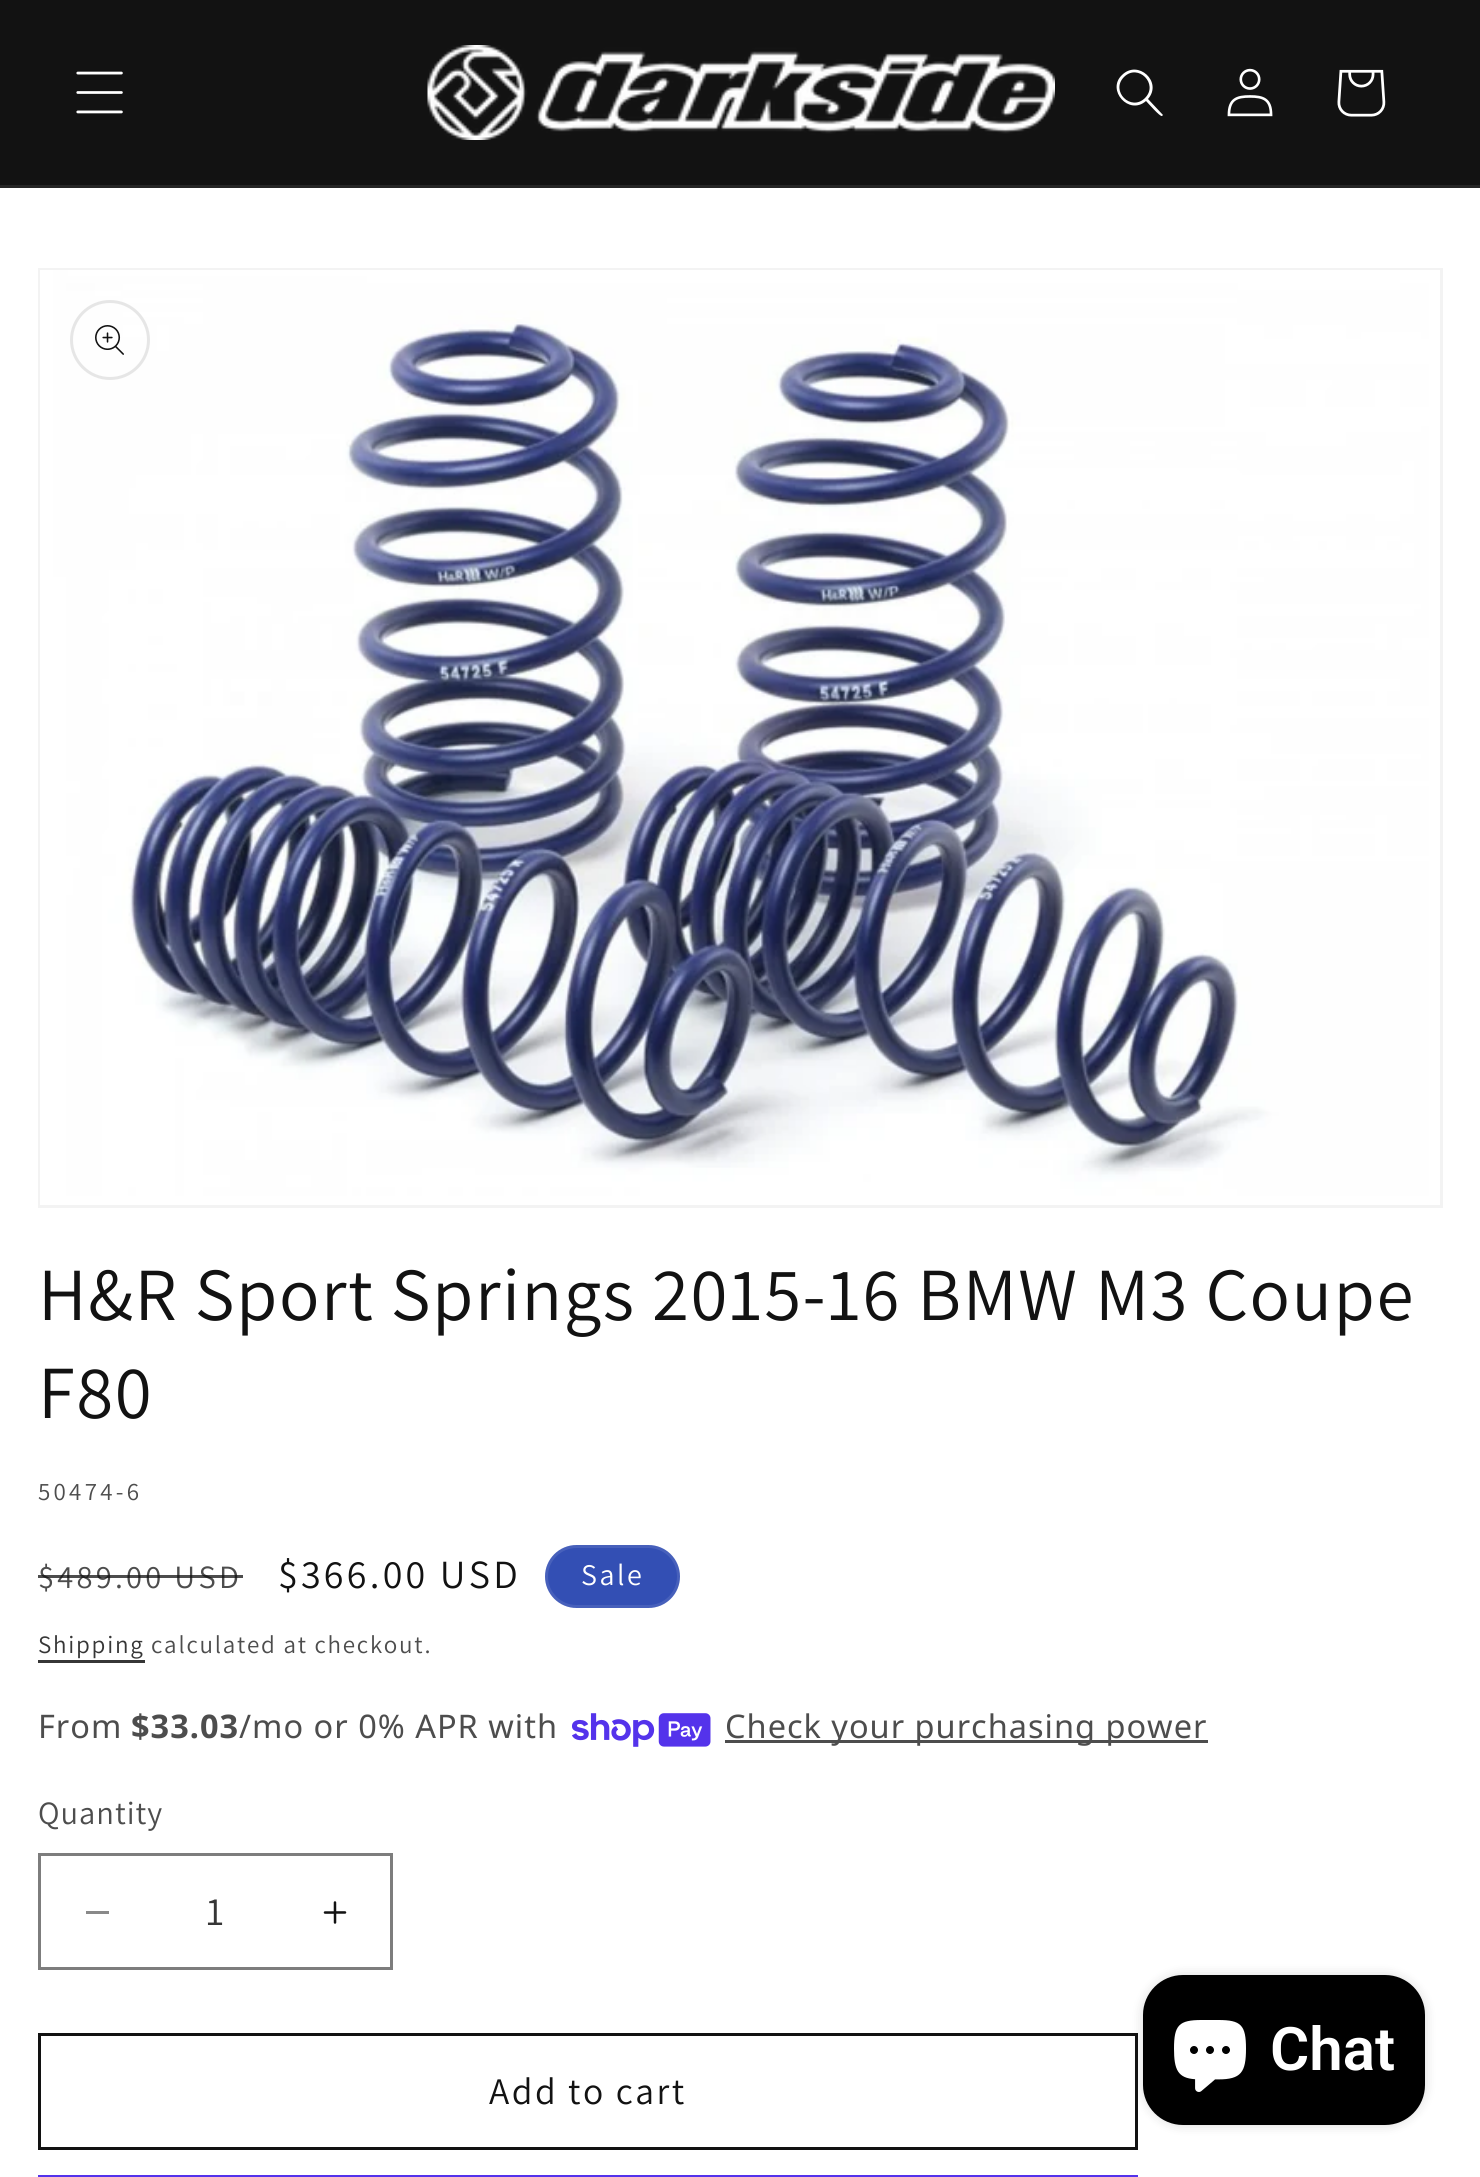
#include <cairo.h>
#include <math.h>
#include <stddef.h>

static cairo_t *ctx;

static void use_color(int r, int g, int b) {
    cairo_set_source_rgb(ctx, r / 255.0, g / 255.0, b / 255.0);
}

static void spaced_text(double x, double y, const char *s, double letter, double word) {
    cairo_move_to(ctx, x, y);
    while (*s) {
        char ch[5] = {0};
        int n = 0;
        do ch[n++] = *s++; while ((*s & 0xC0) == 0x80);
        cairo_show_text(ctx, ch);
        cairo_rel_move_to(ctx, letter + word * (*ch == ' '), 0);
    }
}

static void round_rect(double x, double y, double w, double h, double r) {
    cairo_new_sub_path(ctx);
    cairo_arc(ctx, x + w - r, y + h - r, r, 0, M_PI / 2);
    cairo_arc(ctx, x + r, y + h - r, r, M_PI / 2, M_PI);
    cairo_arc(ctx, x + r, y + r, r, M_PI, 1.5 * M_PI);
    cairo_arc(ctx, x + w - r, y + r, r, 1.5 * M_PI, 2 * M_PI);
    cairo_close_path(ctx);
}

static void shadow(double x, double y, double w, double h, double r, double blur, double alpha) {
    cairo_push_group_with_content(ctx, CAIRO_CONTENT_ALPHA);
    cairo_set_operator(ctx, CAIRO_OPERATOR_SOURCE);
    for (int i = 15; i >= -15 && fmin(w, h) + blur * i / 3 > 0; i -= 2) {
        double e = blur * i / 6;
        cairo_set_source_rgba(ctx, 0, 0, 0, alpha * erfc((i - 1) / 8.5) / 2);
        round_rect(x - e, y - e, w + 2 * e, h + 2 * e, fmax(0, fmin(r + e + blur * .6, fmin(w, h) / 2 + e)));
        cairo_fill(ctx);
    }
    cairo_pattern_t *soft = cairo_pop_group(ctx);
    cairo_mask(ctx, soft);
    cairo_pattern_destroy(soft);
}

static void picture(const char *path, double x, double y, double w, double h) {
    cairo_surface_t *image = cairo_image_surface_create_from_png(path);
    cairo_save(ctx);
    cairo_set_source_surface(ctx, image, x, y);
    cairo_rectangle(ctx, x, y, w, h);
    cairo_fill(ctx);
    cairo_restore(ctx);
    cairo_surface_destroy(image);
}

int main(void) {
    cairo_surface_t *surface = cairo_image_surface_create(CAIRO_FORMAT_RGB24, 1480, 2177);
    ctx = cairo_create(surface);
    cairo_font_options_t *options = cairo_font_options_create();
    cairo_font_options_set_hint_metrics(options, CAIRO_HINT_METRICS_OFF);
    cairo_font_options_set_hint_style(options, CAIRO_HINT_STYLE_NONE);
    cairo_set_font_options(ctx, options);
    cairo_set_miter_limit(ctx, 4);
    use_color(255, 255, 255);
    cairo_paint(ctx);
    use_color(18, 18, 18);
    cairo_rectangle(ctx, 0, 0, 1480, 185);
    cairo_fill(ctx);
    use_color(37, 37, 37);
    cairo_rectangle(ctx, 0, 185, 1480, 3);
    cairo_fill(ctx);
    picture("img1.png", 76, 71, 47, 43);
    picture("img2.png", 427, 45, 628, 95);
    use_color(255, 255, 255);
    cairo_set_fill_rule(ctx, CAIRO_FILL_RULE_EVEN_ODD);
    cairo_new_path(ctx);
    cairo_move_to(ctx, 1145, 98);
    cairo_curve_to(ctx, 1131, 112, 1110, 91, 1124, 77);
    cairo_curve_to(ctx, 1138, 63, 1159, 84, 1145, 98);
    cairo_close_path(ctx);
    cairo_move_to(ctx, 1146, 101);
    cairo_curve_to(ctx, 1129, 116, 1106, 90, 1122, 75);
    cairo_curve_to(ctx, 1138, 59, 1163, 82, 1148, 99);
    cairo_line_to(ctx, 1163, 115);
    cairo_line_to(ctx, 1162, 116);
    cairo_curve_to(ctx, 1160, 117, 1148, 103, 1146, 101);
    cairo_close_path(ctx);
    cairo_fill(ctx);
    picture("img3.png", 1227, 68, 46, 49);
    picture("img4.png", 1337, 69, 49, 48);
    cairo_rectangle(ctx, 39.5, 269.5, 1402, 937);
    use_color(243, 243, 243);
    cairo_set_line_width(ctx, 3);
    cairo_stroke(ctx);
    picture("img5.png", 40, 270, 1400, 935);
    cairo_arc(ctx, 110, 340, 38.5, 0, 2 * M_PI);
    use_color(230, 230, 230);
    cairo_stroke(ctx);
    picture("img6.png", 95, 325, 29, 30);
    cairo_select_font_face(ctx, "Assistant", CAIRO_FONT_SLANT_NORMAL, CAIRO_FONT_WEIGHT_NORMAL);
    cairo_set_font_size(ctx, 75);
    use_color(18, 18, 18);
    spaced_text(38, 1320, "H&R Sport Springs 2015-16 BMW M3 Coupe", 1.5, 0);
    spaced_text(38, 1418, "F80", 1.5, 0);
    cairo_set_font_size(ctx, 25);
    use_color(77, 77, 77);
    spaced_text(38, 1500, "50474-6", 3.25, 0);
    cairo_set_font_size(ctx, 32.5);
    spaced_text(38, 1588, "$489.00 USD", 3.25, 0);
    cairo_set_source_rgba(ctx, 0.071, 0.071, 0.071, 0.75);
    cairo_rectangle(ctx, 38, 1575, 205, 3);
    cairo_fill(ctx);
    cairo_set_font_size(ctx, 40);
    use_color(18, 18, 18);
    spaced_text(278, 1588, "$366.00 USD", 3.25, 0);
    use_color(51, 79, 180);
    round_rect(545, 1545, 135, 63, 31.5);
    cairo_fill(ctx);
    round_rect(546.5, 1546.5, 132, 60, 30);
    cairo_set_source_rgba(ctx, 1, 1, 1, 0.1);
    cairo_stroke(ctx);
    cairo_set_font_size(ctx, 30);
    use_color(255, 255, 255);
    spaced_text(581, 1585, "Sale", 2.5, 0);
    cairo_set_font_size(ctx, 25);
    use_color(54, 54, 54);
    spaced_text(38, 1653, "Shipping", 1.75, 0);
    cairo_rectangle(ctx, 38, 1660, 107, 3);
    cairo_fill(ctx);
    use_color(77, 77, 77);
    spaced_text(151, 1653, "calculated at checkout.", 1.75, 0);
    cairo_select_font_face(ctx, "Noto Sans", CAIRO_FONT_SLANT_NORMAL, CAIRO_FONT_WEIGHT_NORMAL);
    cairo_set_font_size(ctx, 32.5);
    spaced_text(38, 1738, "From", 1, 0);
    cairo_select_font_face(ctx, "Noto Sans", CAIRO_FONT_SLANT_NORMAL, CAIRO_FONT_WEIGHT_BOLD);
    spaced_text(131, 1738, "$33.03", 1, 0);
    cairo_select_font_face(ctx, "Noto Sans", CAIRO_FONT_SLANT_NORMAL, CAIRO_FONT_WEIGHT_NORMAL);
    spaced_text(239, 1738, "/mo or 0% APR with", 1, 0);
    picture("img7.png", 572, 1713, 139, 34);
    cairo_rectangle(ctx, 725, 1740, 483, 3);
    cairo_fill(ctx);
    spaced_text(725, 1738, "Check your purchasing power", 1, 0);
    cairo_select_font_face(ctx, "Assistant", CAIRO_FONT_SLANT_NORMAL, CAIRO_FONT_WEIGHT_NORMAL);
    spaced_text(38, 1824, "Quantity", 1, 0);
    use_color(137, 137, 137);
    cairo_rectangle(ctx, 86, 1911, 23, 3);
    cairo_fill(ctx);
    picture("img8.png", 323, 1901, 24, 23);
    cairo_rectangle(ctx, 39.5, 1854.5, 352, 114);
    use_color(125, 125, 125);
    cairo_stroke(ctx);
    cairo_set_font_size(ctx, 40);
    use_color(54, 54, 54);
    cairo_move_to(ctx, 206, 1925);
    cairo_show_text(ctx, "1");
    cairo_rectangle(ctx, 39.5, 2034.5, 1097, 114);
    use_color(18, 18, 18);
    cairo_stroke(ctx);
    cairo_set_font_size(ctx, 37.5);
    spaced_text(489, 2104, "Add to cart", 2.5, 0);
    use_color(84, 51, 235);
    cairo_rectangle(ctx, 38, 2175, 1100, 2);
    cairo_fill(ctx);
    use_color(0, 0, 0);
    shadow(1143, 1975, 282, 150, 40, 6, 0.15);
    use_color(0, 0, 0);
    round_rect(1143, 1975, 282, 150, 40);
    cairo_fill(ctx);
    picture("img9.png", 1174, 2020, 72, 72);
    cairo_select_font_face(ctx, "Roboto SemiBold", CAIRO_FONT_SLANT_NORMAL, CAIRO_FONT_WEIGHT_NORMAL);
    cairo_set_font_size(ctx, 60);
    use_color(255, 255, 255);
    cairo_move_to(ctx, 1270, 2070);
    cairo_show_text(ctx, "Chat");
    cairo_surface_write_to_png(surface, "result.png");
    cairo_font_options_destroy(options);
    cairo_destroy(ctx);
    cairo_surface_destroy(surface);
    return 0;
}
